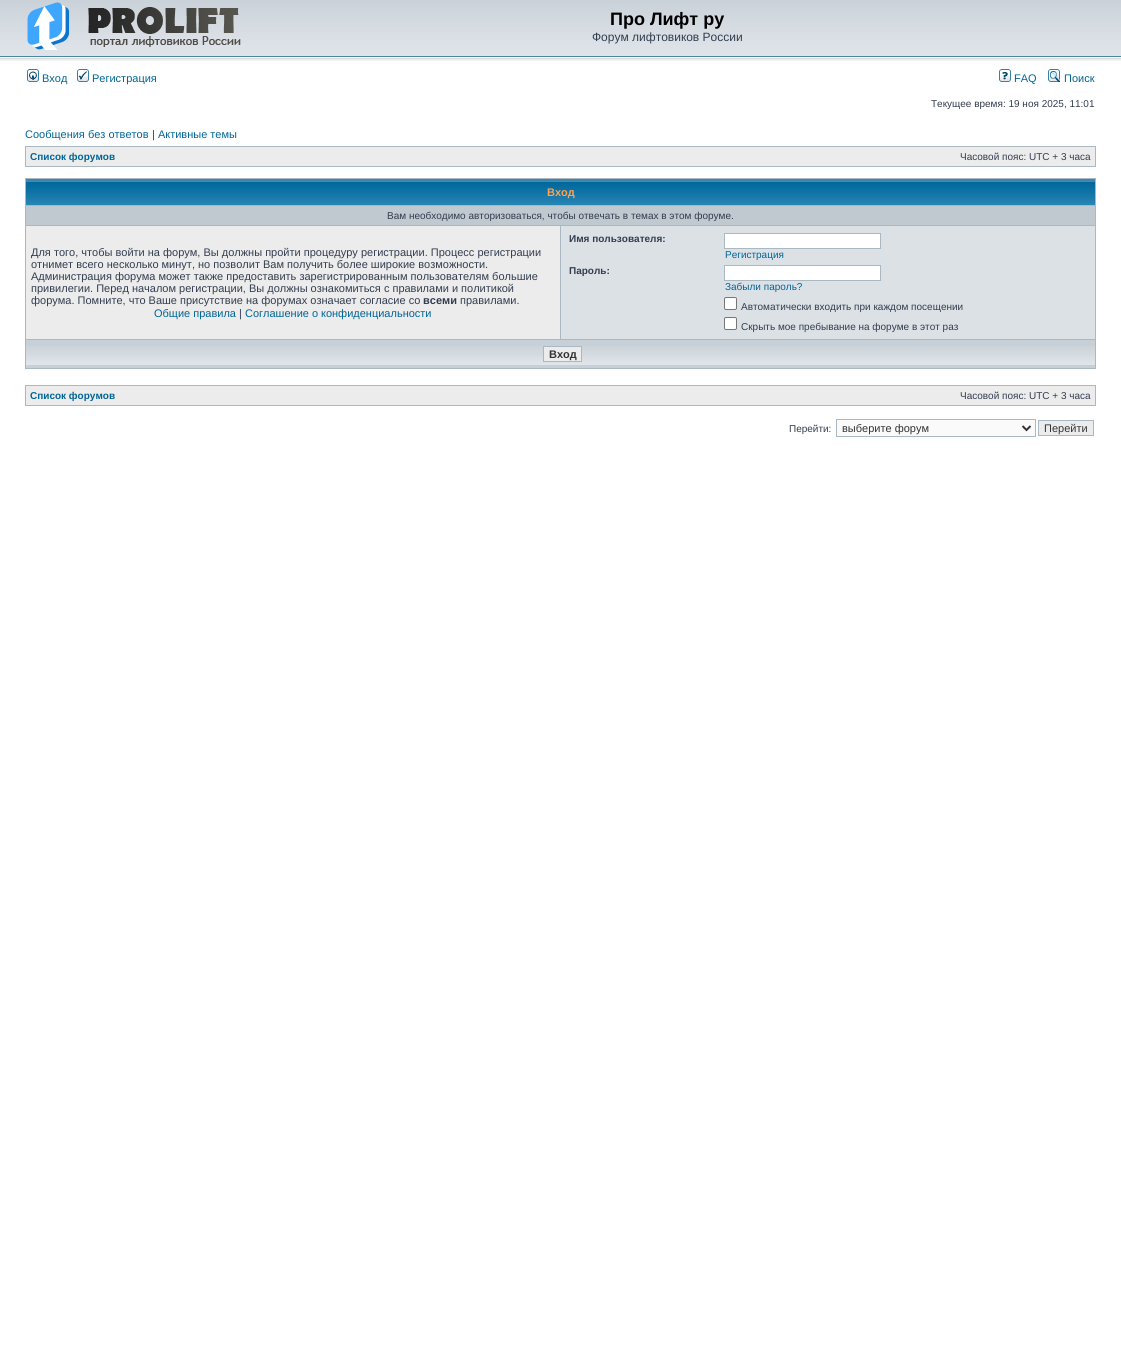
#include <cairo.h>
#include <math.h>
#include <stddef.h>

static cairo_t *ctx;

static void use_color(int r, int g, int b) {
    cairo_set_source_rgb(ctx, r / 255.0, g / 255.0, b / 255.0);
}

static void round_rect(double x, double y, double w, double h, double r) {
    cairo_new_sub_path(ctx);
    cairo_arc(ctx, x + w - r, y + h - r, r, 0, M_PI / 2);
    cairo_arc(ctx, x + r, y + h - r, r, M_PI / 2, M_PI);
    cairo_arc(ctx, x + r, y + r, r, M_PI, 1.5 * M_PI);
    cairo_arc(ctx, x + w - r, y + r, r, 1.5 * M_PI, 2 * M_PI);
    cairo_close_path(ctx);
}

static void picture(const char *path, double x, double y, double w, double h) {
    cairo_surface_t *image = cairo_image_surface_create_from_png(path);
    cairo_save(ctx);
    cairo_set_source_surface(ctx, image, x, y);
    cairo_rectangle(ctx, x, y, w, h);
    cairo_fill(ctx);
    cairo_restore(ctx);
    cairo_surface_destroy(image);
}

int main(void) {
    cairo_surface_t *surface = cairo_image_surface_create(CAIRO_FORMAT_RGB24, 1121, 1351);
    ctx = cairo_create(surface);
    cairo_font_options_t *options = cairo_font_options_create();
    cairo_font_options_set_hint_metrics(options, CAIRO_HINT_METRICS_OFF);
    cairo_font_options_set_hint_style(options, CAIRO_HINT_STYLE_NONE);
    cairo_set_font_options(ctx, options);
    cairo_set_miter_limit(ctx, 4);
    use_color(255, 255, 255);
    cairo_paint(ctx);
    picture("img1.png", 0, 0, 1121, 67);
    picture("img2.png", 27, 2, 214, 48);
    cairo_select_font_face(ctx, "Liberation Sans", CAIRO_FONT_SLANT_NORMAL, CAIRO_FONT_WEIGHT_BOLD);
    cairo_set_font_size(ctx, 18);
    use_color(0, 0, 0);
    cairo_move_to(ctx, 610, 25);
    cairo_show_text(ctx, "Про Лифт ру");
    cairo_select_font_face(ctx, "Liberation Sans", CAIRO_FONT_SLANT_NORMAL, CAIRO_FONT_WEIGHT_NORMAL);
    cairo_set_font_size(ctx, 12);
    use_color(50, 61, 79);
    cairo_move_to(ctx, 592, 41);
    cairo_show_text(ctx, "Форум лифтовиков России");
    picture("img3.png", 27, 69, 12, 13);
    cairo_set_font_size(ctx, 11);
    use_color(0, 101, 151);
    cairo_move_to(ctx, 42, 82);
    cairo_show_text(ctx, "Вход");
    picture("img4.png", 77, 69, 12, 13);
    cairo_move_to(ctx, 92, 82);
    cairo_show_text(ctx, "Регистрация");
    picture("img5.png", 999, 69, 12, 13);
    cairo_move_to(ctx, 1014, 82);
    cairo_show_text(ctx, "FAQ");
    picture("img6.png", 1048, 69, 12, 13);
    cairo_move_to(ctx, 1064, 82);
    cairo_show_text(ctx, "Поиск");
    cairo_set_font_size(ctx, 10);
    use_color(50, 61, 79);
    cairo_move_to(ctx, 931, 107);
    cairo_show_text(ctx, "Текущее время: 19 ноя 2025, 11:01");
    cairo_set_font_size(ctx, 11);
    use_color(0, 101, 151);
    cairo_move_to(ctx, 25, 138);
    cairo_show_text(ctx, "Сообщения без ответов");
    use_color(50, 61, 79);
    cairo_move_to(ctx, 152, 138);
    cairo_show_text(ctx, "|");
    use_color(0, 101, 151);
    cairo_move_to(ctx, 158, 138);
    cairo_show_text(ctx, "Активные темы");
    use_color(169, 184, 194);
    cairo_rectangle(ctx, 25, 146, 1071, 21);
    cairo_fill(ctx);
    use_color(236, 236, 236);
    cairo_rectangle(ctx, 26, 147, 1069, 19);
    cairo_fill(ctx);
    cairo_select_font_face(ctx, "Liberation Sans", CAIRO_FONT_SLANT_NORMAL, CAIRO_FONT_WEIGHT_BOLD);
    cairo_set_font_size(ctx, 10);
    use_color(0, 101, 151);
    cairo_move_to(ctx, 30, 160);
    cairo_show_text(ctx, "Список форумов");
    cairo_select_font_face(ctx, "Liberation Sans", CAIRO_FONT_SLANT_NORMAL, CAIRO_FONT_WEIGHT_NORMAL);
    use_color(50, 61, 79);
    cairo_move_to(ctx, 960, 160);
    cairo_show_text(ctx, "Часовой пояс: UTC + 3 часа");
    use_color(169, 184, 194);
    cairo_rectangle(ctx, 25, 178, 1071, 191);
    cairo_fill(ctx);
    picture("img7.png", 26, 179, 1069, 26);
    cairo_select_font_face(ctx, "Liberation Sans", CAIRO_FONT_SLANT_NORMAL, CAIRO_FONT_WEIGHT_BOLD);
    cairo_set_font_size(ctx, 11);
    use_color(255, 163, 79);
    cairo_move_to(ctx, 547, 196);
    cairo_show_text(ctx, "Вход");
    use_color(192, 200, 208);
    cairo_rectangle(ctx, 26, 206, 1069, 19);
    cairo_fill(ctx);
    cairo_select_font_face(ctx, "Liberation Sans", CAIRO_FONT_SLANT_NORMAL, CAIRO_FONT_WEIGHT_NORMAL);
    cairo_set_font_size(ctx, 10);
    use_color(50, 61, 79);
    cairo_move_to(ctx, 387, 219);
    cairo_show_text(ctx, "Вам необходимо авторизоваться, чтобы отвечать в темах в этом форуме.");
    use_color(236, 236, 236);
    cairo_rectangle(ctx, 26, 226, 534, 113);
    cairo_fill(ctx);
    cairo_set_font_size(ctx, 11);
    use_color(50, 61, 79);
    cairo_move_to(ctx, 31, 256);
    cairo_show_text(ctx, "Для того, чтобы войти на форум, Вы должны пройти процедуру регистрации. Процесс регистрации");
    cairo_move_to(ctx, 31, 268);
    cairo_show_text(ctx, "отнимет всего несколько минут, но позволит Вам получить более широкие возможности.");
    cairo_move_to(ctx, 31, 280);
    cairo_show_text(ctx, "Администрация форума может также предоставить зарегистрированным пользователям большие");
    cairo_move_to(ctx, 31, 292);
    cairo_show_text(ctx, "привилегии. Перед началом регистрации, Вы должны ознакомиться с правилами и политикой");
    cairo_move_to(ctx, 31, 304);
    cairo_show_text(ctx, "форума. Помните, что Ваше присутствие на форумах означает согласие со");
    cairo_select_font_face(ctx, "Liberation Sans", CAIRO_FONT_SLANT_NORMAL, CAIRO_FONT_WEIGHT_BOLD);
    cairo_move_to(ctx, 423, 304);
    cairo_show_text(ctx, "всеми");
    cairo_select_font_face(ctx, "Liberation Sans", CAIRO_FONT_SLANT_NORMAL, CAIRO_FONT_WEIGHT_NORMAL);
    cairo_move_to(ctx, 460, 304);
    cairo_show_text(ctx, "правилами.");
    use_color(0, 101, 151);
    cairo_move_to(ctx, 154, 317);
    cairo_show_text(ctx, "Общие правила");
    use_color(50, 61, 79);
    cairo_move_to(ctx, 239, 317);
    cairo_show_text(ctx, "|");
    use_color(0, 101, 151);
    cairo_move_to(ctx, 245, 317);
    cairo_show_text(ctx, "Соглашение о конфиденциальности");
    use_color(220, 225, 229);
    cairo_rectangle(ctx, 561, 226, 534, 113);
    cairo_fill(ctx);
    cairo_select_font_face(ctx, "Liberation Sans", CAIRO_FONT_SLANT_NORMAL, CAIRO_FONT_WEIGHT_BOLD);
    cairo_set_font_size(ctx, 10);
    use_color(50, 61, 79);
    cairo_move_to(ctx, 569, 242);
    cairo_show_text(ctx, "Имя пользователя:");
    use_color(255, 255, 255);
    cairo_rectangle(ctx, 724.5, 233.5, 156, 15);
    cairo_fill_preserve(ctx);
    use_color(169, 184, 194);
    cairo_set_line_width(ctx, 1);
    cairo_stroke(ctx);
    cairo_select_font_face(ctx, "Liberation Sans", CAIRO_FONT_SLANT_NORMAL, CAIRO_FONT_WEIGHT_NORMAL);
    use_color(0, 101, 151);
    cairo_move_to(ctx, 725, 258);
    cairo_show_text(ctx, "Регистрация");
    cairo_select_font_face(ctx, "Liberation Sans", CAIRO_FONT_SLANT_NORMAL, CAIRO_FONT_WEIGHT_BOLD);
    use_color(50, 61, 79);
    cairo_move_to(ctx, 569, 274);
    cairo_show_text(ctx, "Пароль:");
    use_color(255, 255, 255);
    cairo_rectangle(ctx, 724.5, 265.5, 156, 15);
    cairo_fill_preserve(ctx);
    use_color(169, 184, 194);
    cairo_stroke(ctx);
    cairo_select_font_face(ctx, "Liberation Sans", CAIRO_FONT_SLANT_NORMAL, CAIRO_FONT_WEIGHT_NORMAL);
    use_color(0, 101, 151);
    cairo_move_to(ctx, 725, 290);
    cairo_show_text(ctx, "Забыли пароль?");
    use_color(255, 255, 255);
    round_rect(724.5, 297.5, 12, 12, 1.5);
    cairo_fill_preserve(ctx);
    use_color(118, 118, 118);
    cairo_stroke(ctx);
    use_color(50, 61, 79);
    cairo_move_to(ctx, 741, 310);
    cairo_show_text(ctx, "Автоматически входить при каждом посещении");
    use_color(255, 255, 255);
    round_rect(724.5, 317.5, 12, 12, 1.5);
    cairo_fill_preserve(ctx);
    use_color(118, 118, 118);
    cairo_stroke(ctx);
    use_color(50, 61, 79);
    cairo_move_to(ctx, 741, 330);
    cairo_show_text(ctx, "Скрыть мое пребывание на форуме в этот раз");
    use_color(199, 208, 215);
    cairo_rectangle(ctx, 26, 340, 1069, 28);
    cairo_fill(ctx);
    picture("img8.png", 26, 346, 1069, 19);
    use_color(236, 236, 236);
    cairo_rectangle(ctx, 543.5, 346.5, 38, 15);
    cairo_fill_preserve(ctx);
    use_color(169, 184, 194);
    cairo_stroke(ctx);
    cairo_select_font_face(ctx, "Liberation Sans", CAIRO_FONT_SLANT_NORMAL, CAIRO_FONT_WEIGHT_BOLD);
    cairo_set_font_size(ctx, 11);
    use_color(51, 51, 51);
    cairo_move_to(ctx, 549, 358);
    cairo_show_text(ctx, "Вход");
    use_color(169, 184, 194);
    cairo_rectangle(ctx, 25, 385, 1071, 21);
    cairo_fill(ctx);
    use_color(236, 236, 236);
    cairo_rectangle(ctx, 26, 386, 1069, 19);
    cairo_fill(ctx);
    cairo_set_font_size(ctx, 10);
    use_color(0, 101, 151);
    cairo_move_to(ctx, 30, 399);
    cairo_show_text(ctx, "Список форумов");
    cairo_select_font_face(ctx, "Liberation Sans", CAIRO_FONT_SLANT_NORMAL, CAIRO_FONT_WEIGHT_NORMAL);
    use_color(50, 61, 79);
    cairo_move_to(ctx, 960, 399);
    cairo_show_text(ctx, "Часовой пояс: UTC + 3 часа");
    cairo_move_to(ctx, 789, 432);
    cairo_show_text(ctx, "Перейти:");
    use_color(250, 250, 250);
    cairo_rectangle(ctx, 836.5, 419.5, 199, 17);
    cairo_fill_preserve(ctx);
    use_color(169, 184, 194);
    cairo_stroke(ctx);
    cairo_new_path(ctx);
    cairo_move_to(ctx, 1022.5, 426);
    cairo_line_to(ctx, 1026.5, 430);
    cairo_line_to(ctx, 1030.5, 426);
    use_color(51, 51, 51);
    cairo_set_line_width(ctx, 2);
    cairo_stroke(ctx);
    cairo_set_font_size(ctx, 11);
    cairo_move_to(ctx, 842, 432);
    cairo_show_text(ctx, "выберите форум");
    use_color(236, 236, 236);
    cairo_rectangle(ctx, 1038.5, 420.5, 55, 15);
    cairo_fill_preserve(ctx);
    use_color(169, 184, 194);
    cairo_set_line_width(ctx, 1);
    cairo_stroke(ctx);
    use_color(51, 51, 51);
    cairo_move_to(ctx, 1044, 432);
    cairo_show_text(ctx, "Перейти");
    cairo_surface_write_to_png(surface, "result.png");
    cairo_font_options_destroy(options);
    cairo_destroy(ctx);
    cairo_surface_destroy(surface);
    return 0;
}
